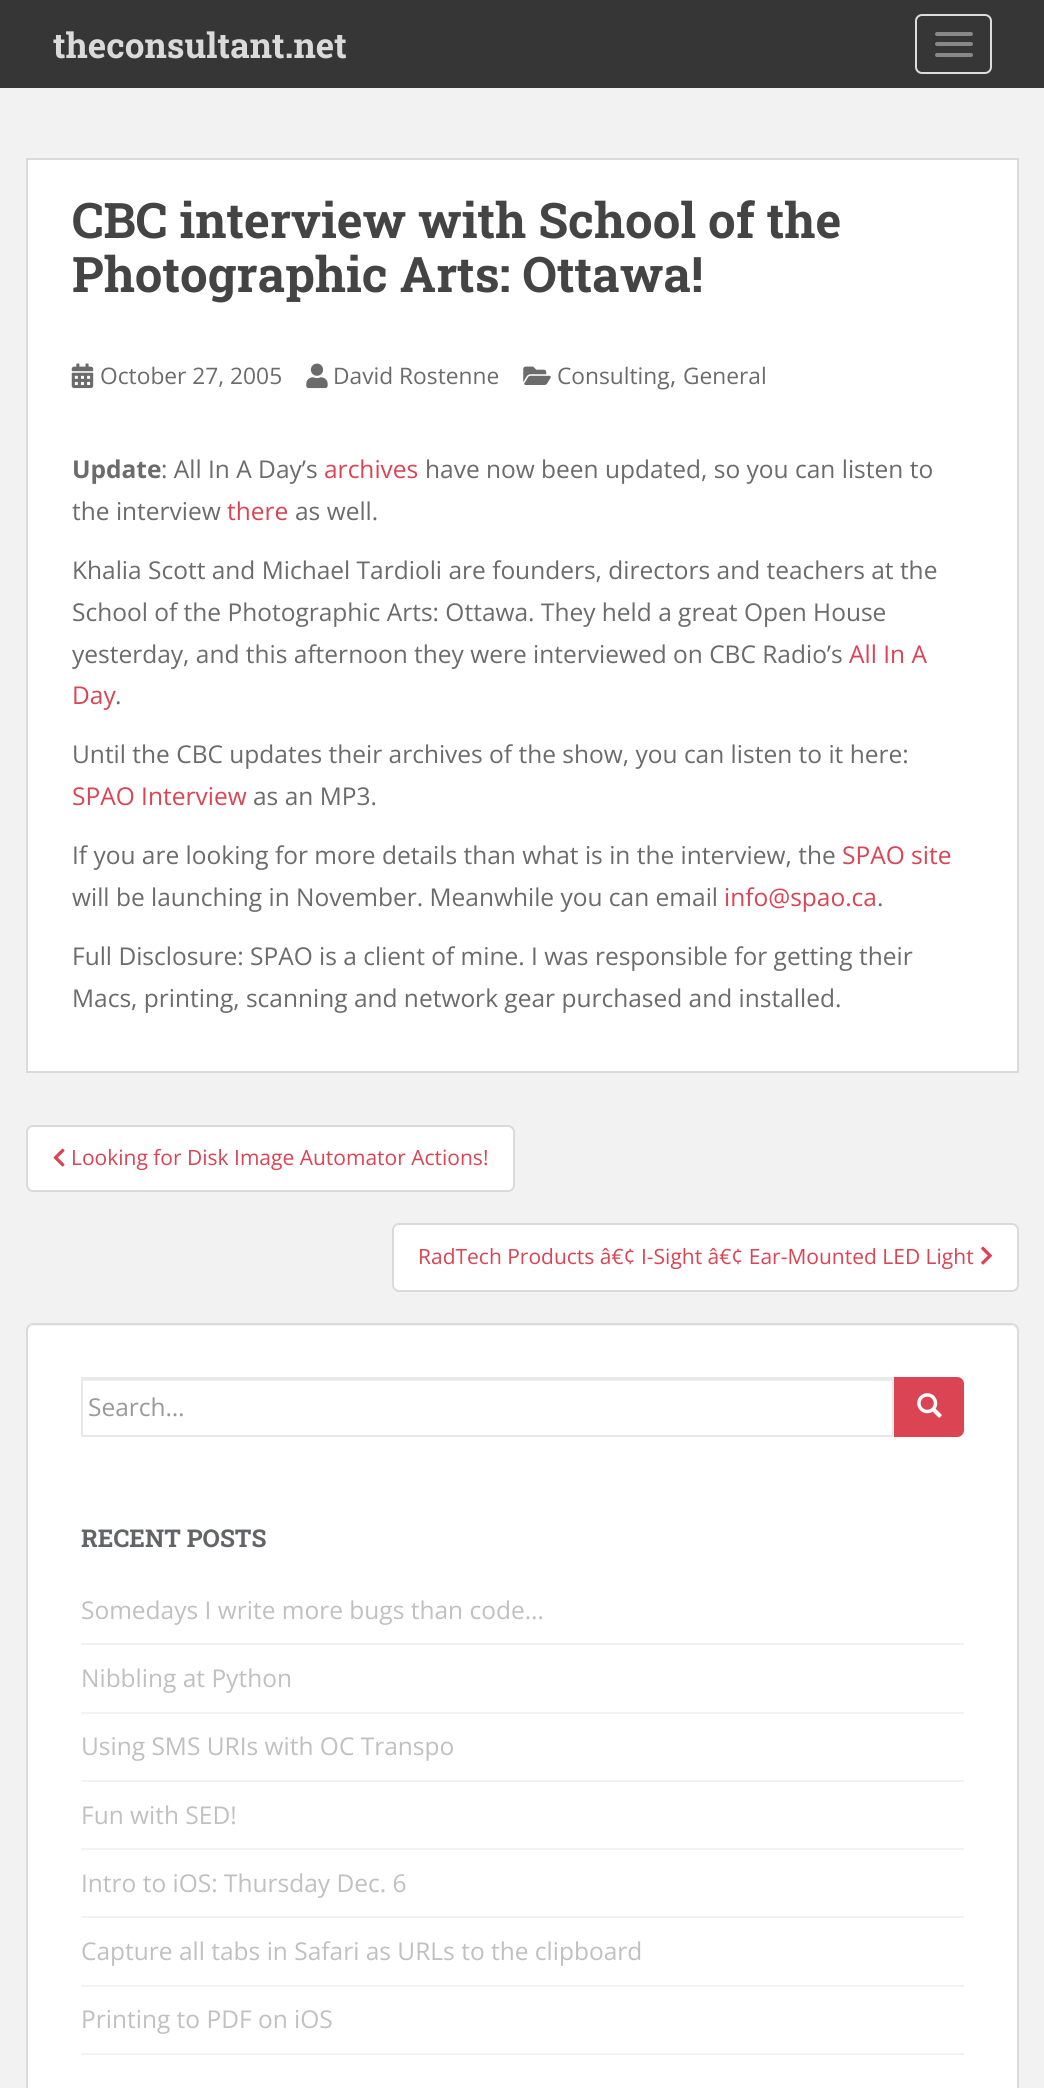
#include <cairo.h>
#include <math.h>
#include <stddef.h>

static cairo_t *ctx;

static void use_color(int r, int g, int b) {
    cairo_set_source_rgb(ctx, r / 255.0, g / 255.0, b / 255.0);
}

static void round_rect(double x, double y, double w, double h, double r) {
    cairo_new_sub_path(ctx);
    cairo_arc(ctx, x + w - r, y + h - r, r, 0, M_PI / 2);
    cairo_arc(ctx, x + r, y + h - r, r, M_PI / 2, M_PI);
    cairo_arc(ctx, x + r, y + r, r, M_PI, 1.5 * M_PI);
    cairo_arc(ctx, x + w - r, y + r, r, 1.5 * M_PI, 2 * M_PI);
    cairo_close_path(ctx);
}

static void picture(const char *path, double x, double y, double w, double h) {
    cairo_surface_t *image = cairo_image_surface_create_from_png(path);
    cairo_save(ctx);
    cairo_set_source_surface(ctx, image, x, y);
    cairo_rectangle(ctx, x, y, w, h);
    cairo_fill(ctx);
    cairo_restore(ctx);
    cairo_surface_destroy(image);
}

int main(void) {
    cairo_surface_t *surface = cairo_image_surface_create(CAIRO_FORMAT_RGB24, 1044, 2088);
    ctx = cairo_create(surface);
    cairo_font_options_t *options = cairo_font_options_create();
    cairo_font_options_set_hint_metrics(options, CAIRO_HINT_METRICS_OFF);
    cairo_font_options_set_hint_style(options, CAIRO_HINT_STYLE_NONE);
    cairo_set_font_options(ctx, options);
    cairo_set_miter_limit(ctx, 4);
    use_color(242, 242, 242);
    cairo_paint(ctx);
    use_color(54, 54, 54);
    cairo_rectangle(ctx, 0, 0, 1044, 88);
    cairo_fill(ctx);
    cairo_select_font_face(ctx, "Roboto Slab", CAIRO_FONT_SLANT_NORMAL, CAIRO_FONT_WEIGHT_BOLD);
    cairo_set_font_size(ctx, 35);
    use_color(218, 218, 218);
    cairo_move_to(ctx, 53, 58);
    cairo_show_text(ctx, "theconsultant.net");
    round_rect(916, 15, 75, 58, 6);
    use_color(221, 221, 221);
    cairo_stroke(ctx);
    use_color(136, 136, 136);
    round_rect(935, 32, 38, 4, 2);
    cairo_fill(ctx);
    round_rect(935, 42, 38, 4, 2);
    cairo_fill(ctx);
    round_rect(935, 53, 38, 4, 2);
    cairo_fill(ctx);
    use_color(255, 255, 255);
    cairo_rectangle(ctx, 27, 159, 991, 913);
    cairo_fill_preserve(ctx);
    use_color(218, 218, 218);
    cairo_stroke(ctx);
    cairo_set_font_size(ctx, 49);
    use_color(68, 68, 68);
    cairo_move_to(ctx, 72, 238);
    cairo_show_text(ctx, "CBC interview with School of the");
    cairo_move_to(ctx, 72, 292);
    cairo_show_text(ctx, "Photographic Arts: Ottawa!");
    picture("img1.png", 71, 363, 23, 26);
    cairo_select_font_face(ctx, "Open Sans", CAIRO_FONT_SLANT_NORMAL, CAIRO_FONT_WEIGHT_NORMAL);
    cairo_set_font_size(ctx, 22.75);
    use_color(107, 107, 107);
    cairo_move_to(ctx, 100, 384);
    cairo_show_text(ctx, "October 27, 2005");
    picture("img2.png", 306, 363, 22, 26);
    cairo_move_to(ctx, 333, 384);
    cairo_show_text(ctx, "David Rostenne");
    picture("img3.png", 523, 366, 28, 19);
    cairo_move_to(ctx, 557, 384);
    cairo_show_text(ctx, "Consulting");
    cairo_set_font_size(ctx, 24.5);
    cairo_move_to(ctx, 670, 384);
    cairo_show_text(ctx, ",");
    cairo_set_font_size(ctx, 22.75);
    cairo_move_to(ctx, 683, 384);
    cairo_show_text(ctx, "General");
    cairo_select_font_face(ctx, "Open Sans", CAIRO_FONT_SLANT_NORMAL, CAIRO_FONT_WEIGHT_BOLD);
    cairo_set_font_size(ctx, 24.5);
    cairo_move_to(ctx, 72, 478);
    cairo_show_text(ctx, "Update");
    cairo_select_font_face(ctx, "Open Sans", CAIRO_FONT_SLANT_NORMAL, CAIRO_FONT_WEIGHT_NORMAL);
    cairo_move_to(ctx, 161, 478);
    cairo_show_text(ctx, ": All In A Day’s");
    use_color(218, 68, 83);
    cairo_move_to(ctx, 324, 478);
    cairo_show_text(ctx, "archives");
    use_color(107, 107, 107);
    cairo_move_to(ctx, 425, 478);
    cairo_show_text(ctx, "have now been updated, so you can listen to");
    cairo_move_to(ctx, 72, 520);
    cairo_show_text(ctx, "the interview");
    use_color(218, 68, 83);
    cairo_move_to(ctx, 227, 520);
    cairo_show_text(ctx, "there");
    use_color(107, 107, 107);
    cairo_move_to(ctx, 295, 520);
    cairo_show_text(ctx, "as well.");
    cairo_move_to(ctx, 72, 579);
    cairo_show_text(ctx, "Khalia Scott and Michael Tardioli are founders, directors and teachers at the");
    cairo_move_to(ctx, 72, 621);
    cairo_show_text(ctx, "School of the Photographic Arts: Ottawa. They held a great Open House");
    cairo_move_to(ctx, 72, 663);
    cairo_show_text(ctx, "yesterday, and this afternoon they were interviewed on CBC Radio’s");
    use_color(218, 68, 83);
    cairo_move_to(ctx, 849, 663);
    cairo_show_text(ctx, "All In A");
    cairo_move_to(ctx, 72, 704);
    cairo_show_text(ctx, "Day");
    use_color(107, 107, 107);
    cairo_move_to(ctx, 115, 704);
    cairo_show_text(ctx, ".");
    cairo_move_to(ctx, 72, 763);
    cairo_show_text(ctx, "Until the CBC updates their archives of the show, you can listen to it here:");
    use_color(218, 68, 83);
    cairo_move_to(ctx, 72, 805);
    cairo_show_text(ctx, "SPAO Interview");
    use_color(107, 107, 107);
    cairo_move_to(ctx, 253, 805);
    cairo_show_text(ctx, "as an MP3.");
    cairo_move_to(ctx, 72, 864);
    cairo_show_text(ctx, "If you are looking for more details than what is in the interview, the");
    use_color(218, 68, 83);
    cairo_move_to(ctx, 842, 864);
    cairo_show_text(ctx, "SPAO site");
    use_color(107, 107, 107);
    cairo_move_to(ctx, 72, 906);
    cairo_show_text(ctx, "will be launching in November. Meanwhile you can email");
    use_color(218, 68, 83);
    cairo_move_to(ctx, 724, 906);
    cairo_show_text(ctx, "info@spao.ca");
    use_color(107, 107, 107);
    cairo_move_to(ctx, 877, 906);
    cairo_show_text(ctx, ".");
    cairo_move_to(ctx, 72, 965);
    cairo_show_text(ctx, "Full Disclosure: SPAO is a client of mine. I was responsible for getting their");
    cairo_move_to(ctx, 72, 1007);
    cairo_show_text(ctx, "Macs, printing, scanning and network gear purchased and installed.");
    use_color(255, 255, 255);
    round_rect(27, 1126, 487, 65, 6);
    cairo_fill_preserve(ctx);
    use_color(218, 218, 218);
    cairo_stroke(ctx);
    picture("img4.png", 53, 1148, 12, 19);
    cairo_set_font_size(ctx, 21);
    use_color(218, 68, 83);
    cairo_move_to(ctx, 71, 1165);
    cairo_show_text(ctx, "Looking for Disk Image Automator Actions!");
    use_color(255, 255, 255);
    round_rect(393, 1224, 625, 67, 6);
    cairo_fill_preserve(ctx);
    use_color(218, 218, 218);
    cairo_stroke(ctx);
    use_color(218, 68, 83);
    cairo_move_to(ctx, 418, 1264);
    cairo_show_text(ctx, "RadTech Products â€¢ I-Sight â€¢ Ear-Mounted LED Light");
    picture("img5.png", 981, 1246, 11, 19);
    use_color(255, 255, 255);
    round_rect(26, 1323, 993, 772, 7);
    cairo_fill(ctx);
    use_color(242, 242, 242);
    cairo_new_path(ctx);
    cairo_move_to(ctx, 33, 1326);
    cairo_line_to(ctx, 1012, 1326);
    cairo_curve_to(ctx, 1014, 1326, 1017, 1329, 1017, 1332);
    cairo_line_to(ctx, 1017, 1330);
    cairo_curve_to(ctx, 1017, 1327, 1015, 1325, 1012, 1325);
    cairo_line_to(ctx, 33, 1325);
    cairo_curve_to(ctx, 30, 1325, 28, 1327, 28, 1330);
    cairo_line_to(ctx, 28, 1332);
    cairo_curve_to(ctx, 28, 1329, 30, 1326, 33, 1326);
    cairo_close_path(ctx);
    cairo_fill(ctx);
    round_rect(27, 1324, 991, 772, 6);
    use_color(218, 218, 218);
    cairo_stroke(ctx);
    use_color(236, 236, 236);
    cairo_rectangle(ctx, 82, 1379, 811, 2);
    cairo_fill(ctx);
    cairo_rectangle(ctx, 82, 1378, 811, 58);
    use_color(232, 232, 232);
    cairo_stroke(ctx);
    cairo_set_font_size(ctx, 24.5);
    use_color(153, 153, 153);
    cairo_move_to(ctx, 88, 1416);
    cairo_show_text(ctx, "Search…");
    use_color(218, 68, 83);
    cairo_new_path(ctx);
    cairo_move_to(ctx, 895, 1378);
    cairo_line_to(ctx, 957, 1378);
    cairo_curve_to(ctx, 960.5, 1378, 963, 1380.5, 963, 1384);
    cairo_line_to(ctx, 963, 1430);
    cairo_curve_to(ctx, 963, 1433.5, 960.5, 1436, 957, 1436);
    cairo_line_to(ctx, 895, 1436);
    cairo_close_path(ctx);
    cairo_fill_preserve(ctx);
    cairo_stroke(ctx);
    picture("img6.png", 917, 1393, 25, 25);
    cairo_select_font_face(ctx, "Roboto Slab", CAIRO_FONT_SLANT_NORMAL, CAIRO_FONT_WEIGHT_BOLD);
    use_color(99, 100, 103);
    cairo_move_to(ctx, 81, 1547);
    cairo_show_text(ctx, "RECENT POSTS");
    use_color(242, 242, 242);
    cairo_rectangle(ctx, 81, 1643, 883, 2);
    cairo_fill(ctx);
    cairo_select_font_face(ctx, "Open Sans", CAIRO_FONT_SLANT_NORMAL, CAIRO_FONT_WEIGHT_NORMAL);
    use_color(193, 192, 192);
    cairo_move_to(ctx, 81, 1619);
    cairo_show_text(ctx, "Somedays I write more bugs than code…");
    use_color(242, 242, 242);
    cairo_rectangle(ctx, 81, 1712, 883, 2);
    cairo_fill(ctx);
    use_color(193, 192, 192);
    cairo_move_to(ctx, 81, 1687);
    cairo_show_text(ctx, "Nibbling at Python");
    use_color(242, 242, 242);
    cairo_rectangle(ctx, 81, 1780, 883, 2);
    cairo_fill(ctx);
    use_color(193, 192, 192);
    cairo_move_to(ctx, 81, 1755);
    cairo_show_text(ctx, "Using SMS URIs with OC Transpo");
    use_color(242, 242, 242);
    cairo_rectangle(ctx, 81, 1848, 883, 2);
    cairo_fill(ctx);
    use_color(193, 192, 192);
    cairo_move_to(ctx, 81, 1824);
    cairo_show_text(ctx, "Fun with SED!");
    use_color(242, 242, 242);
    cairo_rectangle(ctx, 81, 1916, 883, 2);
    cairo_fill(ctx);
    use_color(193, 192, 192);
    cairo_move_to(ctx, 81, 1892);
    cairo_show_text(ctx, "Intro to iOS: Thursday Dec. 6");
    use_color(242, 242, 242);
    cairo_rectangle(ctx, 81, 1985, 883, 2);
    cairo_fill(ctx);
    use_color(193, 192, 192);
    cairo_move_to(ctx, 81, 1960);
    cairo_show_text(ctx, "Capture all tabs in Safari as URLs to the clipboard");
    use_color(242, 242, 242);
    cairo_rectangle(ctx, 81, 2053, 883, 2);
    cairo_fill(ctx);
    use_color(193, 192, 192);
    cairo_move_to(ctx, 81, 2028);
    cairo_show_text(ctx, "Printing to PDF on iOS");
    cairo_surface_write_to_png(surface, "result.png");
    cairo_font_options_destroy(options);
    cairo_destroy(ctx);
    cairo_surface_destroy(surface);
    return 0;
}
